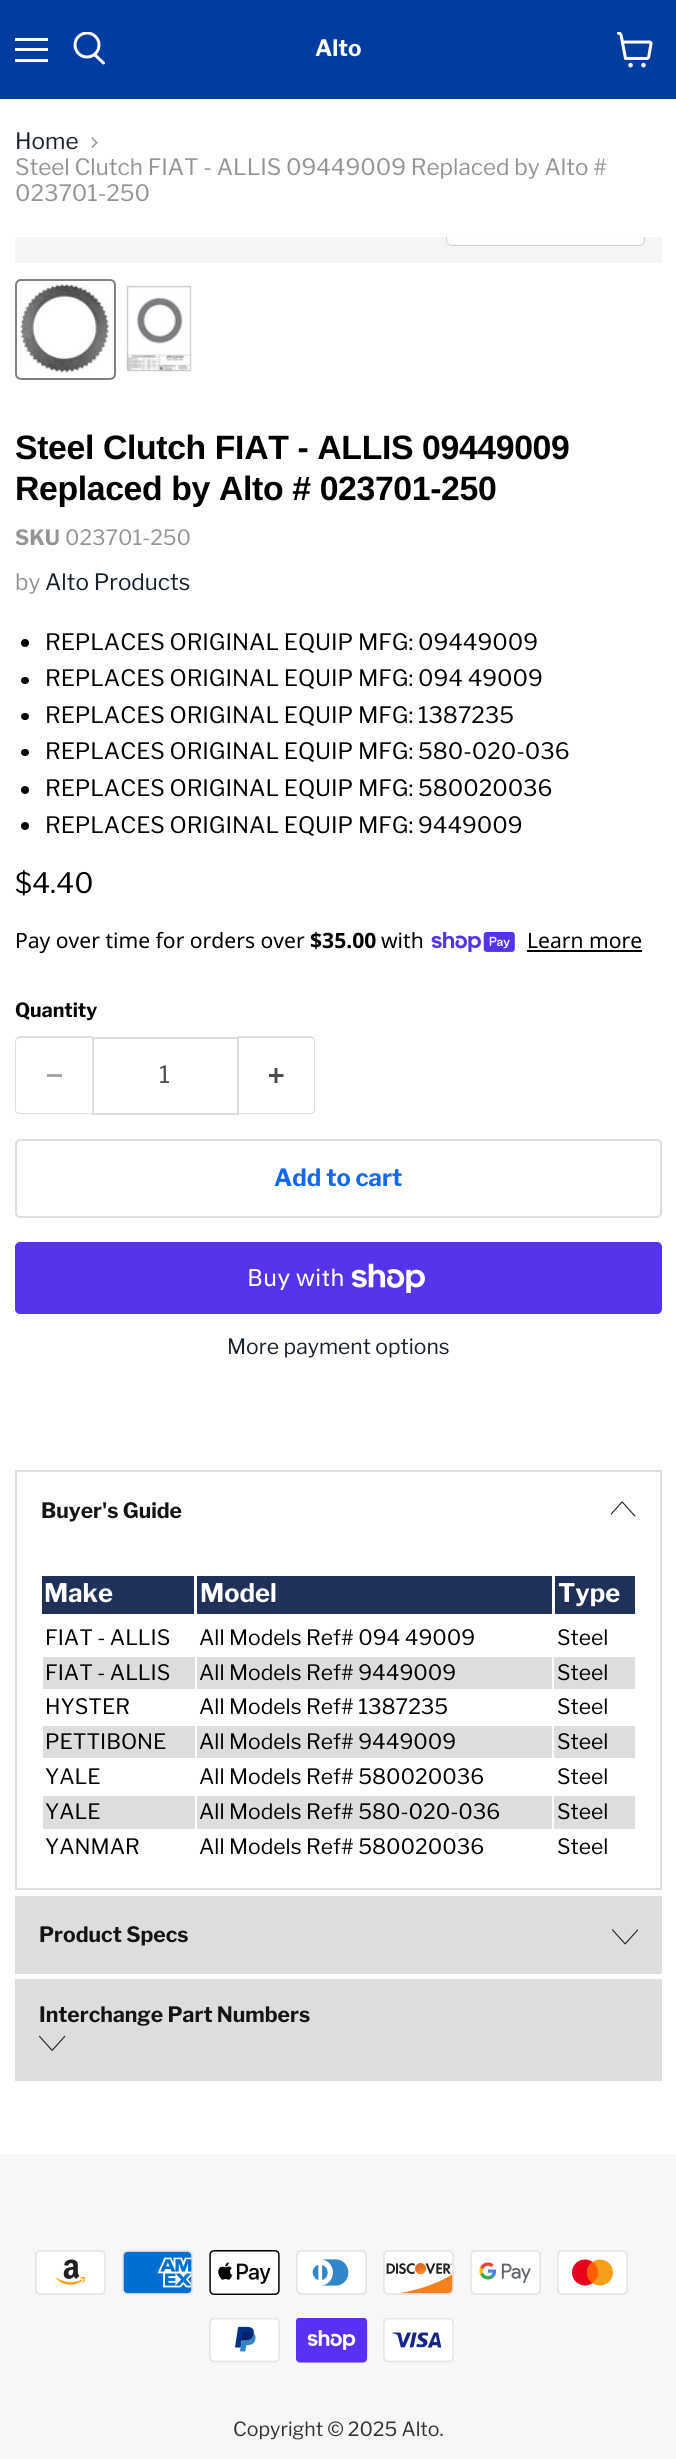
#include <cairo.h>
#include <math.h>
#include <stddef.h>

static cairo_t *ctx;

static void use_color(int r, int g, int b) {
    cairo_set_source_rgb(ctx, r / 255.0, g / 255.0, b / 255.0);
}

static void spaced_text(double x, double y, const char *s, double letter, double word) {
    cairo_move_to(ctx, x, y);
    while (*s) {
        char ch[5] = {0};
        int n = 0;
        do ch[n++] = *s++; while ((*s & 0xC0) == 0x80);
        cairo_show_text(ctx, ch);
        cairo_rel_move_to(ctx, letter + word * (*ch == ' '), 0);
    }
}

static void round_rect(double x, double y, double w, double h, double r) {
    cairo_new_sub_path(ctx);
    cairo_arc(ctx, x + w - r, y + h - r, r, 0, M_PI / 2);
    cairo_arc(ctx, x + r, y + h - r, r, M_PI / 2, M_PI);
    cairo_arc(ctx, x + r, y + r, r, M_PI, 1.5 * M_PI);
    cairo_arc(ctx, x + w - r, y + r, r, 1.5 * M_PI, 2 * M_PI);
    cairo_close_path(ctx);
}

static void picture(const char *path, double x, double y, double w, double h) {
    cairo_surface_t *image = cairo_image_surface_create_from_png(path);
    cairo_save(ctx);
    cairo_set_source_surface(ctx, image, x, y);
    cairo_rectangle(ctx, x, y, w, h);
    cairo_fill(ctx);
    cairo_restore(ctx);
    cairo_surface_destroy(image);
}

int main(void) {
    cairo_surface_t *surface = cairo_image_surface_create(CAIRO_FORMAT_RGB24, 676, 2459);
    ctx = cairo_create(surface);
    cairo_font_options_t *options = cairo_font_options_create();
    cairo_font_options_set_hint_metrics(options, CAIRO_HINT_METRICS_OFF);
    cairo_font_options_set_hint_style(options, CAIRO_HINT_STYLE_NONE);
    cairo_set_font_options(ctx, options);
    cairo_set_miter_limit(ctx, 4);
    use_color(255, 255, 255);
    cairo_paint(ctx);
    use_color(0, 61, 159);
    cairo_rectangle(ctx, 0, 0, 676, 99);
    cairo_fill(ctx);
    use_color(255, 255, 255);
    cairo_rectangle(ctx, 15, 38, 33, 3);
    cairo_fill(ctx);
    cairo_rectangle(ctx, 15, 48, 33, 3);
    cairo_fill(ctx);
    cairo_rectangle(ctx, 15, 59, 33, 3);
    cairo_fill(ctx);
    cairo_new_path(ctx);
    cairo_move_to(ctx, 103.5, 63);
    cairo_line_to(ctx, 95, 55);
    cairo_set_line_width(ctx, 3);
    cairo_set_line_cap(ctx, CAIRO_LINE_CAP_ROUND);
    cairo_stroke(ctx);
    cairo_save(ctx);
    cairo_rectangle(ctx, 72, 32, 35, 36);
    cairo_clip(ctx);
    cairo_arc(ctx, 87, 45, 12, 0, 2 * M_PI);
    cairo_set_line_cap(ctx, CAIRO_LINE_CAP_BUTT);
    cairo_stroke(ctx);
    cairo_restore(ctx);
    cairo_select_font_face(ctx, "Libre Franklin", CAIRO_FONT_SLANT_NORMAL, CAIRO_FONT_WEIGHT_BOLD);
    cairo_set_font_size(ctx, 22.5);
    cairo_move_to(ctx, 315, 56);
    cairo_show_text(ctx, "Alto");
    picture("img1.png", 617, 32, 36, 36);
    cairo_select_font_face(ctx, "Libre Franklin", CAIRO_FONT_SLANT_NORMAL, CAIRO_FONT_WEIGHT_NORMAL);
    use_color(23, 31, 43);
    cairo_move_to(ctx, 15, 149);
    cairo_show_text(ctx, "Home");
    picture("img2.png", 91, 137, 7, 11);
    use_color(148, 148, 148);
    cairo_move_to(ctx, 15, 175);
    cairo_show_text(ctx, "Steel Clutch FIAT - ALLIS 09449009 Replaced by Alto #");
    cairo_move_to(ctx, 15, 201);
    cairo_show_text(ctx, "023701-250");
    use_color(245, 245, 245);
    cairo_rectangle(ctx, 15, 237, 647, 26);
    cairo_fill(ctx);
    cairo_save(ctx);
    cairo_rectangle(ctx, 15, 237, 647, 26);
    cairo_clip(ctx);
    round_rect(447, 204, 197, 41, 5);
    use_color(208, 208, 208);
    cairo_set_line_width(ctx, 2);
    cairo_set_line_cap(ctx, CAIRO_LINE_CAP_BUTT);
    cairo_stroke(ctx);
    cairo_restore(ctx);
    cairo_set_source_rgba(ctx, 1, 1, 1, 0.9);
    cairo_new_path(ctx);
    cairo_move_to(ctx, 447, 237);
    cairo_line_to(ctx, 644, 237);
    cairo_line_to(ctx, 644, 240);
    cairo_curve_to(ctx, 644, 243, 642, 245, 639, 245);
    cairo_line_to(ctx, 452, 245);
    cairo_curve_to(ctx, 449, 245, 447, 243, 447, 240);
    cairo_close_path(ctx);
    cairo_fill(ctx);
    round_rect(16, 280, 99, 99, 5);
    use_color(129, 129, 129);
    cairo_set_line_width(ctx, 2);
    cairo_set_line_cap(ctx, CAIRO_LINE_CAP_BUTT);
    cairo_stroke(ctx);
    picture("img3.png", 20, 283, 90, 90);
    picture("img4.png", 125, 285, 67, 87);
    cairo_select_font_face(ctx, "Arimo", CAIRO_FONT_SLANT_NORMAL, CAIRO_FONT_WEIGHT_BOLD);
    cairo_set_font_size(ctx, 33.75);
    use_color(0, 0, 0);
    spaced_text(15, 459, "Steel Clutch FIAT - ALLIS 09449009", -0.35, 0);
    spaced_text(15, 500, "Replaced by Alto # 023701-250", -0.35, 0);
    cairo_select_font_face(ctx, "Libre Franklin", CAIRO_FONT_SLANT_NORMAL, CAIRO_FONT_WEIGHT_BOLD);
    cairo_set_font_size(ctx, 21);
    use_color(148, 148, 148);
    cairo_move_to(ctx, 15, 545);
    cairo_show_text(ctx, "SKU");
    cairo_select_font_face(ctx, "Libre Franklin", CAIRO_FONT_SLANT_NORMAL, CAIRO_FONT_WEIGHT_NORMAL);
    cairo_move_to(ctx, 65, 545);
    cairo_show_text(ctx, "023701-250");
    cairo_set_font_size(ctx, 22.5);
    cairo_move_to(ctx, 15, 590);
    cairo_show_text(ctx, "by");
    use_color(23, 31, 43);
    cairo_move_to(ctx, 45, 590);
    cairo_show_text(ctx, "Alto Products");
    use_color(0, 0, 0);
    cairo_new_path(ctx);
    cairo_arc(ctx, 25, 643, 4, 0, 2 * M_PI);
    cairo_fill(ctx);
    cairo_move_to(ctx, 45, 650);
    cairo_show_text(ctx, "REPLACES ORIGINAL EQUIP MFG: 09449009");
    round_rect(21, 677, 8, 7, 3.5);
    cairo_fill(ctx);
    cairo_move_to(ctx, 45, 686);
    cairo_show_text(ctx, "REPLACES ORIGINAL EQUIP MFG: 094 49009");
    round_rect(21, 713, 8, 7, 3.5);
    cairo_fill(ctx);
    cairo_move_to(ctx, 45, 723);
    cairo_show_text(ctx, "REPLACES ORIGINAL EQUIP MFG: 1387235");
    round_rect(21, 749, 8, 7, 3.5);
    cairo_fill(ctx);
    cairo_move_to(ctx, 45, 759);
    cairo_show_text(ctx, "REPLACES ORIGINAL EQUIP MFG: 580-020-036");
    cairo_new_path(ctx);
    cairo_arc(ctx, 25, 790, 4, 0, 2 * M_PI);
    cairo_fill(ctx);
    cairo_move_to(ctx, 45, 796);
    cairo_show_text(ctx, "REPLACES ORIGINAL EQUIP MFG: 580020036");
    cairo_new_path(ctx);
    cairo_arc(ctx, 25, 826, 4, 0, 2 * M_PI);
    cairo_fill(ctx);
    cairo_move_to(ctx, 45, 833);
    cairo_show_text(ctx, "REPLACES ORIGINAL EQUIP MFG: 9449009");
    cairo_set_font_size(ctx, 28);
    cairo_move_to(ctx, 15, 893);
    cairo_show_text(ctx, "$4.40");
    cairo_select_font_face(ctx, "Noto Sans", CAIRO_FONT_SLANT_NORMAL, CAIRO_FONT_WEIGHT_NORMAL);
    cairo_set_font_size(ctx, 21.1);
    cairo_move_to(ctx, 15, 948);
    cairo_show_text(ctx, "Pay over time for orders over");
    cairo_select_font_face(ctx, "Noto Sans", CAIRO_FONT_SLANT_NORMAL, CAIRO_FONT_WEIGHT_BOLD);
    cairo_move_to(ctx, 310, 948);
    cairo_show_text(ctx, "$35.00");
    cairo_select_font_face(ctx, "Noto Sans", CAIRO_FONT_SLANT_NORMAL, CAIRO_FONT_WEIGHT_NORMAL);
    cairo_move_to(ctx, 381, 948);
    cairo_show_text(ctx, "with");
    picture("img5.png", 431, 932, 84, 21);
    cairo_move_to(ctx, 527, 948);
    cairo_show_text(ctx, "Learn more");
    cairo_rectangle(ctx, 527, 950, 115, 2);
    cairo_fill(ctx);
    cairo_select_font_face(ctx, "Libre Franklin", CAIRO_FONT_SLANT_NORMAL, CAIRO_FONT_WEIGHT_BOLD);
    cairo_set_font_size(ctx, 19.5);
    cairo_move_to(ctx, 15, 1017);
    cairo_show_text(ctx, "Quantity");
    use_color(221, 221, 221);
    cairo_set_fill_rule(ctx, CAIRO_FILL_RULE_EVEN_ODD);
    cairo_new_path(ctx);
    cairo_move_to(ctx, 20, 1036);
    cairo_line_to(ctx, 92, 1036);
    cairo_line_to(ctx, 92, 1114);
    cairo_line_to(ctx, 20, 1114);
    cairo_curve_to(ctx, 17, 1114, 15, 1112, 15, 1110);
    cairo_line_to(ctx, 15, 1041);
    cairo_curve_to(ctx, 15, 1039, 17, 1036, 20, 1036);
    cairo_close_path(ctx);
    cairo_move_to(ctx, 20, 1038);
    cairo_line_to(ctx, 92, 1038);
    cairo_line_to(ctx, 92, 1113);
    cairo_line_to(ctx, 20, 1113);
    cairo_curve_to(ctx, 18, 1113, 16, 1112, 16, 1110);
    cairo_line_to(ctx, 16, 1041);
    cairo_curve_to(ctx, 16, 1039, 18, 1038, 20, 1038);
    cairo_close_path(ctx);
    cairo_fill(ctx);
    use_color(166, 166, 166);
    cairo_rectangle(ctx, 47, 1074, 15, 3);
    cairo_fill(ctx);
    cairo_rectangle(ctx, 93, 1038, 145, 76);
    use_color(221, 221, 221);
    cairo_stroke(ctx);
    cairo_select_font_face(ctx, "Libre Franklin", CAIRO_FONT_SLANT_NORMAL, CAIRO_FONT_WEIGHT_NORMAL);
    cairo_set_font_size(ctx, 23.75);
    use_color(77, 77, 77);
    cairo_move_to(ctx, 159, 1083);
    cairo_show_text(ctx, "1");
    use_color(221, 221, 221);
    cairo_new_path(ctx);
    cairo_move_to(ctx, 238, 1036);
    cairo_line_to(ctx, 310, 1036);
    cairo_curve_to(ctx, 313, 1036, 315, 1039, 315, 1041);
    cairo_line_to(ctx, 315, 1110);
    cairo_curve_to(ctx, 315, 1112, 313, 1114, 310, 1114);
    cairo_line_to(ctx, 238, 1114);
    cairo_close_path(ctx);
    cairo_move_to(ctx, 238, 1038);
    cairo_line_to(ctx, 310, 1038);
    cairo_curve_to(ctx, 312, 1038, 314, 1039, 314, 1041);
    cairo_line_to(ctx, 314, 1110);
    cairo_curve_to(ctx, 314, 1112, 312, 1113, 310, 1113);
    cairo_line_to(ctx, 238, 1113);
    cairo_close_path(ctx);
    cairo_fill(ctx);
    picture("img6.png", 269, 1068, 15, 15);
    round_rect(16, 1140, 645, 77, 4);
    cairo_stroke(ctx);
    cairo_select_font_face(ctx, "Libre Franklin", CAIRO_FONT_SLANT_NORMAL, CAIRO_FONT_WEIGHT_BOLD);
    use_color(18, 104, 241);
    cairo_move_to(ctx, 274, 1186);
    cairo_show_text(ctx, "Add to cart");
    use_color(84, 51, 235);
    round_rect(15, 1242, 647, 72, 5);
    cairo_fill(ctx);
    cairo_select_font_face(ctx, "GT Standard", CAIRO_FONT_SLANT_NORMAL, CAIRO_FONT_WEIGHT_NORMAL);
    cairo_set_font_size(ctx, 24);
    use_color(255, 255, 255);
    cairo_move_to(ctx, 247, 1286);
    cairo_show_text(ctx, "Buy with");
    picture("img7.png", 351, 1263, 74, 30);
    cairo_select_font_face(ctx, "Libre Franklin", CAIRO_FONT_SLANT_NORMAL, CAIRO_FONT_WEIGHT_NORMAL);
    cairo_set_font_size(ctx, 21.1);
    use_color(23, 31, 43);
    cairo_move_to(ctx, 227, 1354);
    cairo_show_text(ctx, "More payment options");
    cairo_rectangle(ctx, 16, 1549, 645, 340);
    use_color(221, 221, 221);
    cairo_stroke(ctx);
    use_color(255, 255, 255);
    cairo_rectangle(ctx, 17, 1548, 643, 2);
    cairo_fill(ctx);
    use_color(221, 221, 221);
    cairo_rectangle(ctx, 15, 1470, 647, 2);
    cairo_fill(ctx);
    cairo_rectangle(ctx, 660, 1470, 2, 80);
    cairo_fill(ctx);
    cairo_rectangle(ctx, 15, 1470, 2, 80);
    cairo_fill(ctx);
    cairo_select_font_face(ctx, "Libre Franklin", CAIRO_FONT_SLANT_NORMAL, CAIRO_FONT_WEIGHT_BOLD);
    use_color(21, 19, 19);
    cairo_move_to(ctx, 41, 1518);
    cairo_show_text(ctx, "Buyer's Guide");
    picture("img8.png", 611, 1501, 25, 16);
    use_color(31, 49, 88);
    cairo_rectangle(ctx, 42, 1576, 593, 38);
    cairo_fill(ctx);
    cairo_set_font_size(ctx, 25.5);
    use_color(255, 255, 255);
    cairo_move_to(ctx, 44, 1602);
    cairo_show_text(ctx, "Make");
    cairo_rectangle(ctx, 194, 1574, 3, 45);
    cairo_fill(ctx);
    cairo_move_to(ctx, 200, 1602);
    cairo_show_text(ctx, "Model");
    cairo_rectangle(ctx, 552, 1574, 3, 45);
    cairo_fill(ctx);
    cairo_move_to(ctx, 558, 1602);
    cairo_show_text(ctx, "Type");
    cairo_select_font_face(ctx, "Libre Franklin", CAIRO_FONT_SLANT_NORMAL, CAIRO_FONT_WEIGHT_NORMAL);
    cairo_set_font_size(ctx, 21.1);
    use_color(0, 0, 0);
    cairo_move_to(ctx, 45, 1645);
    cairo_show_text(ctx, "FIAT - ALLIS");
    cairo_move_to(ctx, 199, 1645);
    cairo_show_text(ctx, "All Models Ref# 094 49009");
    cairo_move_to(ctx, 557, 1645);
    cairo_show_text(ctx, "Steel");
    use_color(221, 221, 221);
    cairo_rectangle(ctx, 43, 1657, 592, 32);
    cairo_fill(ctx);
    use_color(0, 0, 0);
    cairo_move_to(ctx, 45, 1680);
    cairo_show_text(ctx, "FIAT - ALLIS");
    use_color(255, 255, 255);
    cairo_rectangle(ctx, 195, 1655, 2, 36);
    cairo_fill(ctx);
    use_color(0, 0, 0);
    cairo_move_to(ctx, 199, 1680);
    cairo_show_text(ctx, "All Models Ref# 9449009");
    use_color(255, 255, 255);
    cairo_rectangle(ctx, 552, 1655, 2, 36);
    cairo_fill(ctx);
    use_color(0, 0, 0);
    cairo_move_to(ctx, 557, 1680);
    cairo_show_text(ctx, "Steel");
    cairo_move_to(ctx, 45, 1714);
    cairo_show_text(ctx, "HYSTER");
    cairo_move_to(ctx, 199, 1714);
    cairo_show_text(ctx, "All Models Ref# 1387235");
    cairo_move_to(ctx, 557, 1714);
    cairo_show_text(ctx, "Steel");
    use_color(221, 221, 221);
    cairo_rectangle(ctx, 43, 1726, 592, 32);
    cairo_fill(ctx);
    use_color(0, 0, 0);
    cairo_move_to(ctx, 45, 1749);
    cairo_show_text(ctx, "PETTIBONE");
    use_color(255, 255, 255);
    cairo_rectangle(ctx, 195, 1724, 2, 36);
    cairo_fill(ctx);
    use_color(0, 0, 0);
    cairo_move_to(ctx, 199, 1749);
    cairo_show_text(ctx, "All Models Ref# 9449009");
    use_color(255, 255, 255);
    cairo_rectangle(ctx, 552, 1724, 2, 36);
    cairo_fill(ctx);
    use_color(0, 0, 0);
    cairo_move_to(ctx, 557, 1749);
    cairo_show_text(ctx, "Steel");
    cairo_move_to(ctx, 45, 1784);
    cairo_show_text(ctx, "YALE");
    cairo_move_to(ctx, 199, 1784);
    cairo_show_text(ctx, "All Models Ref# 580020036");
    cairo_move_to(ctx, 557, 1784);
    cairo_show_text(ctx, "Steel");
    use_color(221, 221, 221);
    cairo_rectangle(ctx, 43, 1796, 592, 33);
    cairo_fill(ctx);
    use_color(0, 0, 0);
    cairo_move_to(ctx, 45, 1819);
    cairo_show_text(ctx, "YALE");
    use_color(255, 255, 255);
    cairo_rectangle(ctx, 195, 1794, 2, 36);
    cairo_fill(ctx);
    use_color(0, 0, 0);
    cairo_move_to(ctx, 199, 1819);
    cairo_show_text(ctx, "All Models Ref# 580-020-036");
    use_color(255, 255, 255);
    cairo_rectangle(ctx, 552, 1794, 2, 36);
    cairo_fill(ctx);
    use_color(0, 0, 0);
    cairo_move_to(ctx, 557, 1819);
    cairo_show_text(ctx, "Steel");
    cairo_move_to(ctx, 45, 1854);
    cairo_show_text(ctx, "YANMAR");
    cairo_move_to(ctx, 199, 1854);
    cairo_show_text(ctx, "All Models Ref# 580020036");
    cairo_move_to(ctx, 557, 1854);
    cairo_show_text(ctx, "Steel");
    use_color(221, 221, 221);
    cairo_rectangle(ctx, 15, 1896, 647, 78);
    cairo_fill(ctx);
    cairo_select_font_face(ctx, "Libre Franklin", CAIRO_FONT_SLANT_NORMAL, CAIRO_FONT_WEIGHT_BOLD);
    use_color(21, 19, 19);
    cairo_move_to(ctx, 39, 1942);
    cairo_show_text(ctx, "Product Specs");
    picture("img9.png", 612, 1929, 26, 16);
    use_color(221, 221, 221);
    cairo_rectangle(ctx, 15, 1979, 647, 102);
    cairo_fill(ctx);
    use_color(21, 19, 19);
    cairo_move_to(ctx, 39, 2022);
    cairo_show_text(ctx, "Interchange Part Numbers");
    picture("img10.png", 39, 2035, 27, 16);
    use_color(247, 247, 247);
    cairo_rectangle(ctx, 0, 2154, 676, 305);
    cairo_fill(ctx);
    picture("img11.png", 35, 2250, 71, 45);
    picture("img12.png", 122, 2250, 71, 45);
    picture("img13.png", 209, 2250, 71, 45);
    picture("img14.png", 296, 2250, 71, 45);
    picture("img15.png", 383, 2250, 71, 45);
    picture("img16.png", 470, 2250, 71, 45);
    picture("img17.png", 557, 2250, 71, 45);
    picture("img18.png", 209, 2318, 71, 45);
    picture("img19.png", 296, 2318, 72, 45);
    picture("img20.png", 383, 2318, 71, 45);
    cairo_select_font_face(ctx, "Libre Franklin", CAIRO_FONT_SLANT_NORMAL, CAIRO_FONT_WEIGHT_NORMAL);
    cairo_set_font_size(ctx, 19.5);
    use_color(49, 49, 49);
    cairo_move_to(ctx, 233, 2436);
    cairo_show_text(ctx, "Copyright © 2025 Alto.");
    cairo_surface_write_to_png(surface, "result.png");
    cairo_font_options_destroy(options);
    cairo_destroy(ctx);
    cairo_surface_destroy(surface);
    return 0;
}
